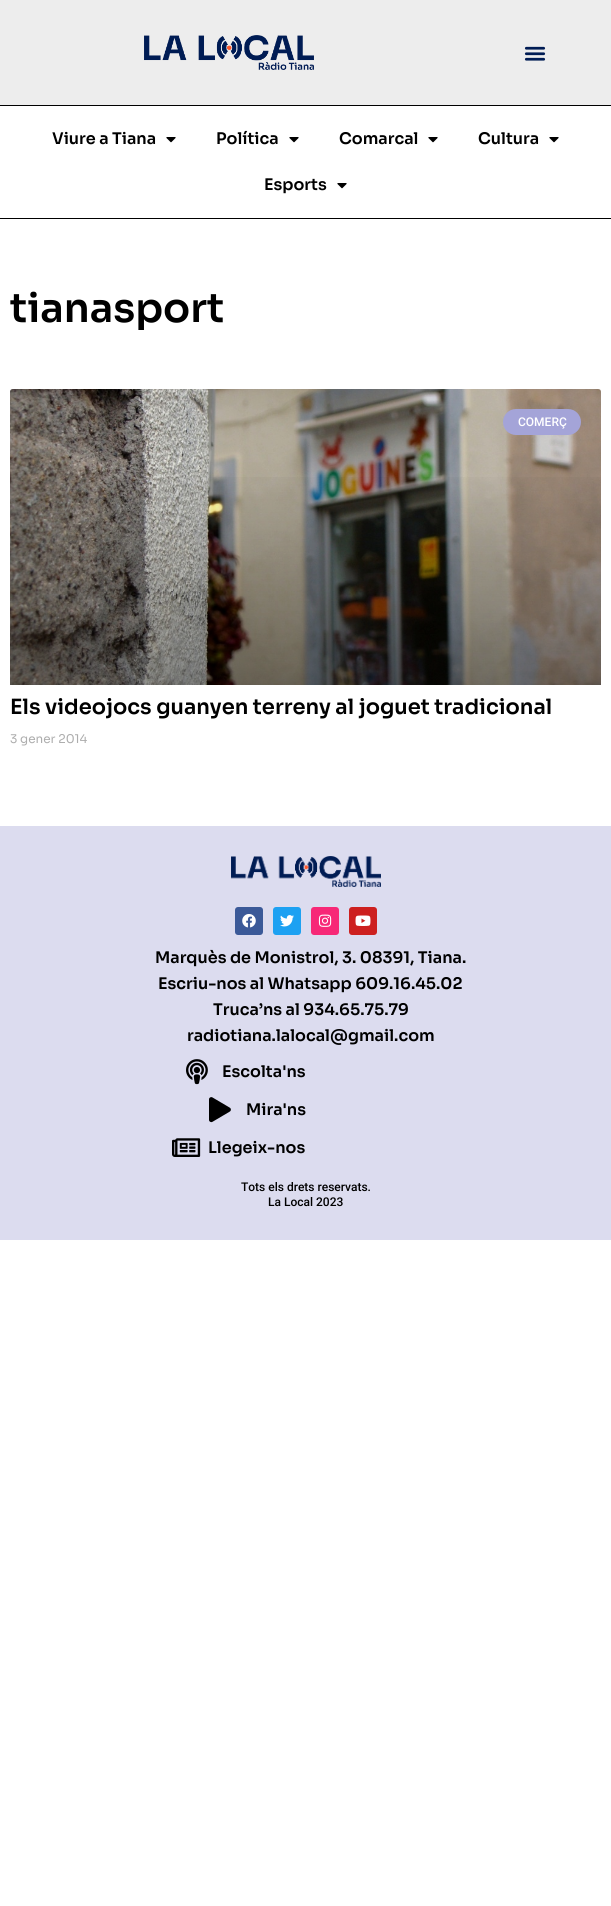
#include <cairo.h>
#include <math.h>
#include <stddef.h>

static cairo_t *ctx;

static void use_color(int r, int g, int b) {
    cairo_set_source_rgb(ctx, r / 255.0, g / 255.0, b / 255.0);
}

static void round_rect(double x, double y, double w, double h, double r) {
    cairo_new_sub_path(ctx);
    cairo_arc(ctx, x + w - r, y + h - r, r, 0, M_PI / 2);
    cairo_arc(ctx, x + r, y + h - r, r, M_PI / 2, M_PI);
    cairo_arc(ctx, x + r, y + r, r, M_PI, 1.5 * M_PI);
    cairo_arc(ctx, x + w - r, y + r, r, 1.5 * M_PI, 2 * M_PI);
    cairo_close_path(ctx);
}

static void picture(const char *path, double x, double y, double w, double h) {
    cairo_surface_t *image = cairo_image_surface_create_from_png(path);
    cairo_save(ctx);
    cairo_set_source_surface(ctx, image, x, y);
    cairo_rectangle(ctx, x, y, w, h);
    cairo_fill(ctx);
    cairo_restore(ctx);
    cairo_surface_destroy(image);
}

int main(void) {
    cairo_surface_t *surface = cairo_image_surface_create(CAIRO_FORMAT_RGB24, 611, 1906);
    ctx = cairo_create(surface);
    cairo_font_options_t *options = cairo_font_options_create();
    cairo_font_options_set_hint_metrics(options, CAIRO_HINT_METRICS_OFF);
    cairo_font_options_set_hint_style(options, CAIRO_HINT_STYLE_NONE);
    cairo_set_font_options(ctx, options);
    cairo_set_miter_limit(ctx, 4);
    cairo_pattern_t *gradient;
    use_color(255, 255, 255);
    cairo_paint(ctx);
    use_color(237, 237, 237);
    cairo_rectangle(ctx, 0, 0, 611, 105);
    cairo_fill(ctx);
    picture("img1.png", 144, 35, 170, 35);
    picture("img2.png", 524, 46, 22, 15);
    use_color(0, 0, 0);
    cairo_rectangle(ctx, 0, 105, 611, 1);
    cairo_fill(ctx);
    cairo_rectangle(ctx, 0, 218, 611, 1);
    cairo_fill(ctx);
    cairo_select_font_face(ctx, "Sora SemiBold", CAIRO_FONT_SLANT_NORMAL, CAIRO_FONT_WEIGHT_NORMAL);
    cairo_set_font_size(ctx, 16);
    cairo_move_to(ctx, 52, 144);
    cairo_show_text(ctx, "Viure a Tiana");
    picture("img3.png", 166, 137, 10, 6);
    cairo_move_to(ctx, 216, 144);
    cairo_show_text(ctx, "Política");
    picture("img3.png", 289, 137, 10, 6);
    cairo_move_to(ctx, 339, 144);
    cairo_show_text(ctx, "Comarcal");
    picture("img3.png", 428, 137, 10, 6);
    cairo_move_to(ctx, 478, 144);
    cairo_show_text(ctx, "Cultura");
    picture("img3.png", 549, 137, 10, 6);
    cairo_move_to(ctx, 264, 190);
    cairo_show_text(ctx, "Esports");
    picture("img3.png", 337, 183, 10, 6);
    cairo_set_font_size(ctx, 40);
    cairo_move_to(ctx, 10, 322);
    cairo_show_text(ctx, "tianasport");
    picture("img4.png", 10, 389, 591, 296);
    gradient = cairo_pattern_create_linear(306, 685, 306, 389);
    cairo_pattern_add_color_stop_rgba(gradient, 0, 0, 0, 0, 0.35);
    cairo_pattern_add_color_stop_rgba(gradient, 0.75, 0, 0, 0, 0);
    cairo_set_source(ctx, gradient);
    cairo_pattern_destroy(gradient);
    cairo_rectangle(ctx, 10, 477, 591, 208);
    cairo_fill(ctx);
    use_color(164, 164, 216);
    round_rect(503, 409, 78, 26, 13);
    cairo_fill(ctx);
    cairo_select_font_face(ctx, "Roboto Medium", CAIRO_FONT_SLANT_NORMAL, CAIRO_FONT_WEIGHT_NORMAL);
    cairo_set_font_size(ctx, 12);
    use_color(255, 255, 255);
    cairo_move_to(ctx, 518, 426);
    cairo_show_text(ctx, "COMERÇ");
    cairo_select_font_face(ctx, "Sora SemiBold", CAIRO_FONT_SLANT_NORMAL, CAIRO_FONT_WEIGHT_NORMAL);
    cairo_set_font_size(ctx, 21);
    use_color(0, 0, 0);
    cairo_move_to(ctx, 10, 714);
    cairo_show_text(ctx, "Els videojocs guanyen terreny al joguet tradicional");
    cairo_select_font_face(ctx, "Sora", CAIRO_FONT_SLANT_NORMAL, CAIRO_FONT_WEIGHT_NORMAL);
    cairo_set_font_size(ctx, 12);
    use_color(173, 173, 173);
    cairo_move_to(ctx, 10, 743);
    cairo_show_text(ctx, "3 gener 2014");
    use_color(220, 220, 239);
    cairo_rectangle(ctx, 0, 826, 611, 414);
    cairo_fill(ctx);
    picture("img5.png", 231, 856, 150, 31);
    use_color(59, 89, 152);
    round_rect(235, 907, 28, 28, 3);
    cairo_fill(ctx);
    picture("img6.png", 242, 914, 14, 14);
    use_color(29, 161, 242);
    round_rect(273, 907, 28, 28, 3);
    cairo_fill(ctx);
    picture("img7.png", 280, 915, 14, 12);
    use_color(247, 40, 119);
    round_rect(311, 907, 28, 28, 3);
    cairo_fill(ctx);
    picture("img8.png", 318, 914, 14, 13);
    use_color(205, 32, 31);
    round_rect(349, 907, 28, 28, 3);
    cairo_fill(ctx);
    picture("img9.png", 355, 915, 16, 11);
    cairo_select_font_face(ctx, "Sora SemiBold", CAIRO_FONT_SLANT_NORMAL, CAIRO_FONT_WEIGHT_NORMAL);
    cairo_set_font_size(ctx, 16);
    use_color(0, 0, 0);
    cairo_move_to(ctx, 155, 963);
    cairo_show_text(ctx, "Marquès de Monistrol, 3. 08391, Tiana.");
    cairo_move_to(ctx, 158, 989);
    cairo_show_text(ctx, "Escriu-nos al Whatsapp 609.16.45.02");
    cairo_move_to(ctx, 213, 1015);
    cairo_show_text(ctx, "Truca’ns al 934.65.75.79");
    cairo_move_to(ctx, 187, 1041);
    cairo_show_text(ctx, "radiotiana.lalocal@gmail.com");
    picture("img10.png", 186, 1059, 22, 26);
    cairo_move_to(ctx, 222, 1077);
    cairo_show_text(ctx, "Escolta'ns");
    picture("img11.png", 209, 1097, 22, 26);
    cairo_move_to(ctx, 246, 1115);
    cairo_show_text(ctx, "Mira'ns");
    picture("img12.png", 172, 1138, 29, 19);
    cairo_move_to(ctx, 208, 1153);
    cairo_show_text(ctx, "Llegeix-nos");
    cairo_select_font_face(ctx, "Roboto Medium", CAIRO_FONT_SLANT_NORMAL, CAIRO_FONT_WEIGHT_NORMAL);
    cairo_set_font_size(ctx, 12);
    cairo_move_to(ctx, 241, 1191);
    cairo_show_text(ctx, "Tots els drets reservats.");
    cairo_move_to(ctx, 268, 1206);
    cairo_show_text(ctx, "La Local 2023");
    cairo_surface_write_to_png(surface, "result.png");
    cairo_font_options_destroy(options);
    cairo_destroy(ctx);
    cairo_surface_destroy(surface);
    return 0;
}
